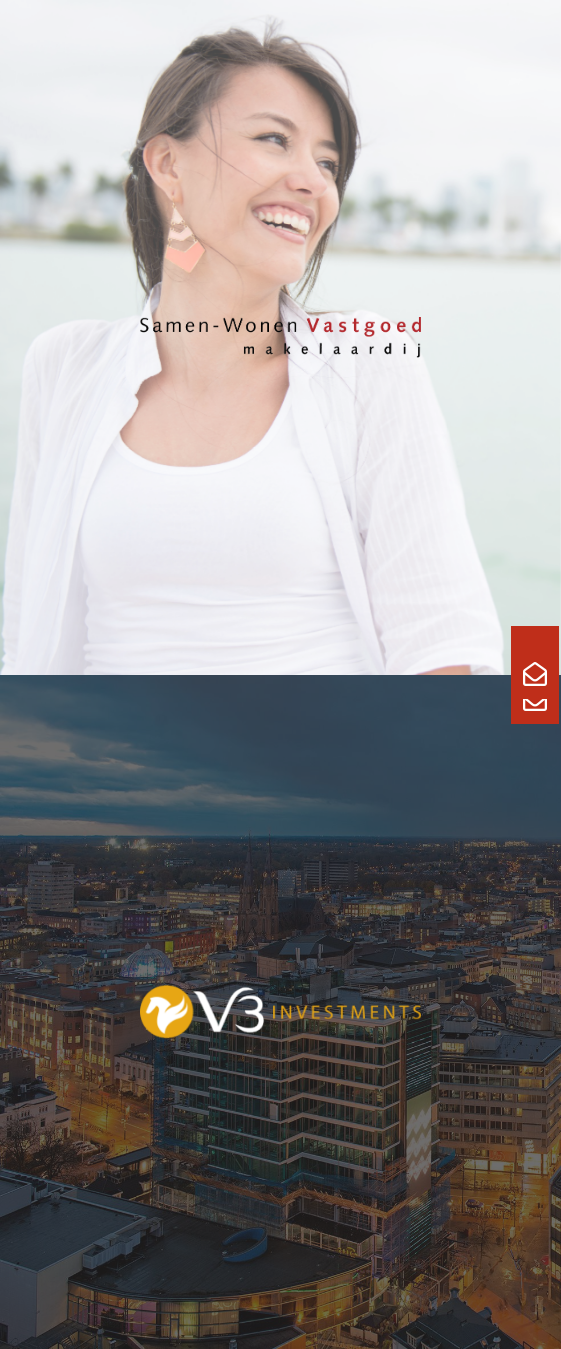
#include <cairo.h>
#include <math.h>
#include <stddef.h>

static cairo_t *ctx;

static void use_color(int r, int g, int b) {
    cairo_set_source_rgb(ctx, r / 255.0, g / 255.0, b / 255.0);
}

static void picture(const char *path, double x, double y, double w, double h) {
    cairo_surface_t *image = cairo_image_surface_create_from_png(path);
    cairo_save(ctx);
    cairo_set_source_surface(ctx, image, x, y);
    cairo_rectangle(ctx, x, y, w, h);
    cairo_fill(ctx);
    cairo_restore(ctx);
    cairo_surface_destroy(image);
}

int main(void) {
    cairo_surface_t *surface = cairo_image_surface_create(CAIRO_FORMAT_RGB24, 561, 1349);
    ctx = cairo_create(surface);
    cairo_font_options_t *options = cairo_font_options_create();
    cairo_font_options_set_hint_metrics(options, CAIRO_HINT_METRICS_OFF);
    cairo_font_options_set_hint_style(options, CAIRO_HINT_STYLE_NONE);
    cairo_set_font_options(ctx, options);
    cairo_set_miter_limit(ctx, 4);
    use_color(255, 255, 255);
    cairo_paint(ctx);
    picture("img1.png", 0, 0, 561, 675);
    picture("img2.png", 140, 317, 281, 41);
    picture("img3.png", 0, 675, 561, 674);
    picture("img4.png", 140, 984, 281, 55);
    use_color(191, 46, 26);
    cairo_rectangle(ctx, 511, 626, 48, 25);
    cairo_fill(ctx);
    cairo_rectangle(ctx, 511, 651, 48, 73);
    cairo_fill(ctx);
    picture("img5.png", 523, 699, 24, 12);
    picture("img6.png", 523, 662, 24, 24);
    cairo_surface_write_to_png(surface, "result.png");
    cairo_font_options_destroy(options);
    cairo_destroy(ctx);
    cairo_surface_destroy(surface);
    return 0;
}
